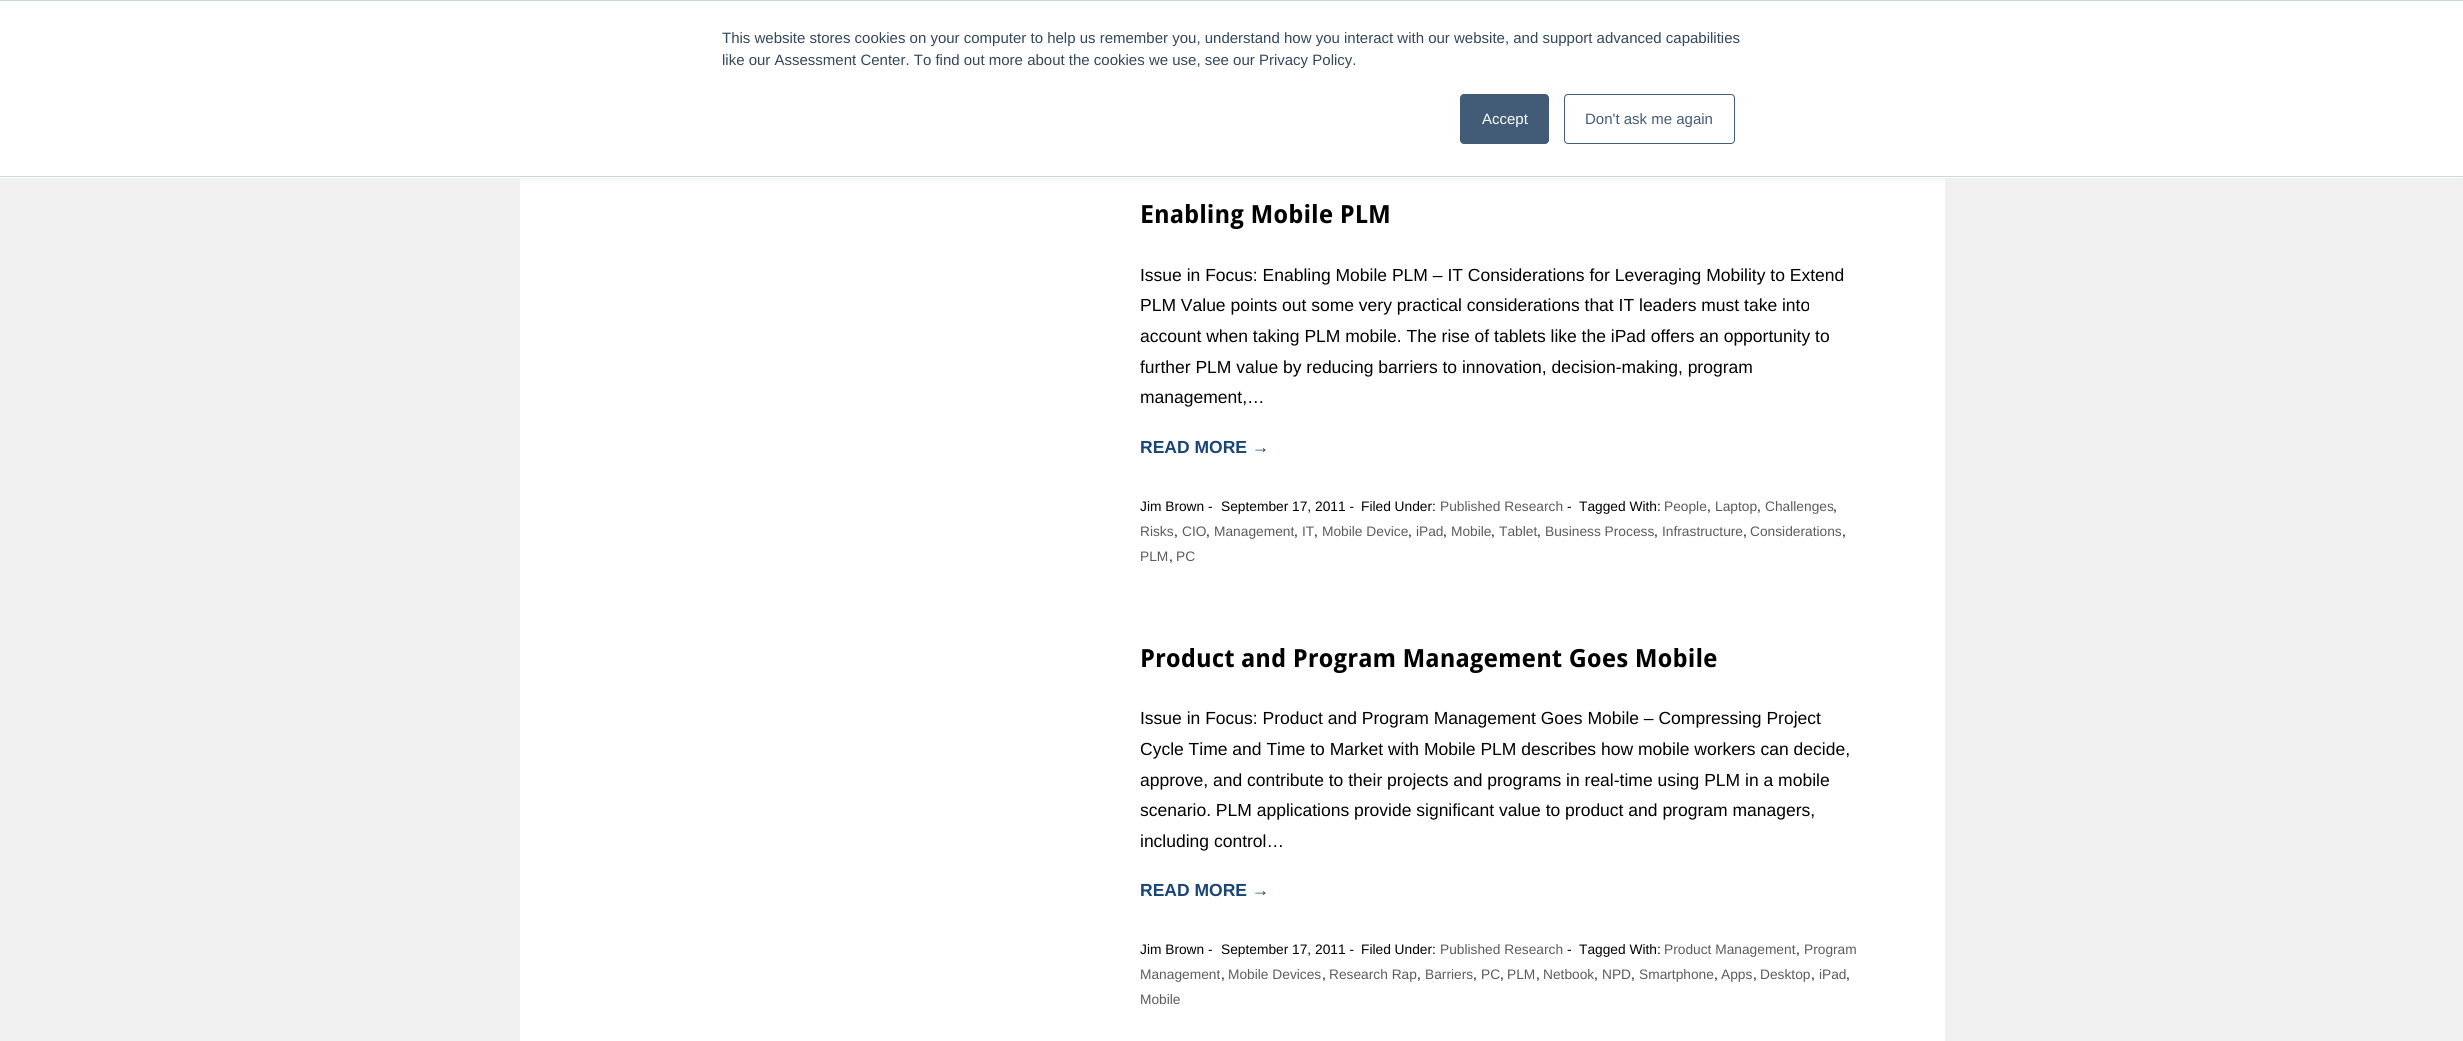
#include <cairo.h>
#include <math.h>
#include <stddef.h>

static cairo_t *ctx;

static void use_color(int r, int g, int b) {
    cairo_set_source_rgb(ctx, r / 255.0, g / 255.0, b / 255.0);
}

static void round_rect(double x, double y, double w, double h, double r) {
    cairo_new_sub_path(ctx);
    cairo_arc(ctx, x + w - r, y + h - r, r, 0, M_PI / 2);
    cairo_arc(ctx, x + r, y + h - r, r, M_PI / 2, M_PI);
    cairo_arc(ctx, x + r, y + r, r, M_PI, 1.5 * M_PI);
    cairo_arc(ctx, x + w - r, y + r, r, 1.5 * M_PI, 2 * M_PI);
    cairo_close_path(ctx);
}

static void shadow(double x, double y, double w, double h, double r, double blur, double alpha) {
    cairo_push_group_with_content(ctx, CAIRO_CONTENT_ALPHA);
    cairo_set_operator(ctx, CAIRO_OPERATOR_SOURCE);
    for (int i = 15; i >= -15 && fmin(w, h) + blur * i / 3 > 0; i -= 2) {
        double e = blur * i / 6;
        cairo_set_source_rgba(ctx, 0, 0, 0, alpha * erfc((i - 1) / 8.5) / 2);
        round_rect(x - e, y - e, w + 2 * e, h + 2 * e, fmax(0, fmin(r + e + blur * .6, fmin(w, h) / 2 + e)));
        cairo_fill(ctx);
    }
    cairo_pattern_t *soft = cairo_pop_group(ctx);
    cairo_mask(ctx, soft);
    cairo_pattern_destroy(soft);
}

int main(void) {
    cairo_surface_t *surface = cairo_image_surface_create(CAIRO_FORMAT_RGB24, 2463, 1041);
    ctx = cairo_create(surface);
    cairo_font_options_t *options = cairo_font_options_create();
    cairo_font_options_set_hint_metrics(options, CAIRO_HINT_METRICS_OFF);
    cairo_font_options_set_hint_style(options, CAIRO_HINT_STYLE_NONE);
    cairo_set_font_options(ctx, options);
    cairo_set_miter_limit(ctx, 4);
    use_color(240, 240, 240);
    cairo_paint(ctx);
    use_color(255, 255, 255);
    cairo_rectangle(ctx, 520, 178, 1425, 863);
    cairo_fill(ctx);
    use_color(234, 240, 246);
    shadow(0, 1, 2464, 178, 0, 3, 1);
    use_color(255, 255, 255);
    cairo_rectangle(ctx, 0, 1, 2463, 177);
    cairo_fill(ctx);
    use_color(203, 214, 226);
    cairo_rectangle(ctx, 0, 0, 2463, 1);
    cairo_fill(ctx);
    cairo_rectangle(ctx, 0, 176, 2463, 1);
    cairo_fill(ctx);
    cairo_select_font_face(ctx, "Liberation Sans", CAIRO_FONT_SLANT_NORMAL, CAIRO_FONT_WEIGHT_NORMAL);
    cairo_set_font_size(ctx, 15);
    use_color(51, 71, 91);
    cairo_move_to(ctx, 722, 43);
    cairo_show_text(ctx, "This website stores cookies on your computer to help us remember you, understand how you interact with our website, and support advanced capabilities");
    cairo_move_to(ctx, 722, 65);
    cairo_show_text(ctx, "like our Assessment Center. To find out more about the cookies we use, see our Privacy Policy.");
    use_color(66, 91, 118);
    round_rect(1460.5, 94.5, 88, 49, 3.5);
    cairo_fill_preserve(ctx);
    cairo_set_line_width(ctx, 1);
    cairo_stroke(ctx);
    use_color(255, 255, 255);
    cairo_move_to(ctx, 1482, 124);
    cairo_show_text(ctx, "Accept");
    round_rect(1564.5, 94.5, 170, 49, 3.5);
    use_color(66, 91, 118);
    cairo_stroke(ctx);
    cairo_move_to(ctx, 1585, 124);
    cairo_show_text(ctx, "Don't ask me again");
    cairo_select_font_face(ctx, "Droid Sans", CAIRO_FONT_SLANT_NORMAL, CAIRO_FONT_WEIGHT_BOLD);
    cairo_set_font_size(ctx, 25);
    use_color(0, 0, 0);
    cairo_move_to(ctx, 1140, 223);
    cairo_show_text(ctx, "Enabling Mobile PLM");
    cairo_select_font_face(ctx, "Liberation Sans", CAIRO_FONT_SLANT_NORMAL, CAIRO_FONT_WEIGHT_NORMAL);
    cairo_set_font_size(ctx, 17.5);
    cairo_move_to(ctx, 1140, 281);
    cairo_show_text(ctx, "Issue in Focus: Enabling Mobile PLM – IT Considerations for Leveraging Mobility to Extend");
    cairo_move_to(ctx, 1140, 311);
    cairo_show_text(ctx, "PLM Value points out some very practical considerations that IT leaders must take into");
    cairo_move_to(ctx, 1140, 342);
    cairo_show_text(ctx, "account when taking PLM mobile. The rise of tablets like the iPad offers an opportunity to");
    cairo_move_to(ctx, 1140, 373);
    cairo_show_text(ctx, "further PLM value by reducing barriers to innovation, decision-making, program");
    cairo_move_to(ctx, 1140, 403);
    cairo_show_text(ctx, "management,…");
    cairo_select_font_face(ctx, "Liberation Sans", CAIRO_FONT_SLANT_NORMAL, CAIRO_FONT_WEIGHT_BOLD);
    use_color(25, 69, 119);
    cairo_move_to(ctx, 1140, 453);
    cairo_show_text(ctx, "READ MORE →");
    cairo_select_font_face(ctx, "Liberation Sans", CAIRO_FONT_SLANT_NORMAL, CAIRO_FONT_WEIGHT_NORMAL);
    cairo_set_font_size(ctx, 13.75);
    use_color(0, 0, 0);
    cairo_move_to(ctx, 1140, 511);
    cairo_show_text(ctx, "Jim Brown -");
    cairo_move_to(ctx, 1221, 511);
    cairo_show_text(ctx, "September 17, 2011 -");
    cairo_move_to(ctx, 1361, 511);
    cairo_show_text(ctx, "Filed Under:");
    use_color(92, 92, 92);
    cairo_move_to(ctx, 1440, 511);
    cairo_show_text(ctx, "Published Research");
    use_color(0, 0, 0);
    cairo_move_to(ctx, 1567, 511);
    cairo_show_text(ctx, "-");
    cairo_move_to(ctx, 1579, 511);
    cairo_show_text(ctx, "Tagged With:");
    use_color(92, 92, 92);
    cairo_move_to(ctx, 1664, 511);
    cairo_show_text(ctx, "People");
    cairo_move_to(ctx, 1715, 511);
    cairo_show_text(ctx, "Laptop");
    cairo_move_to(ctx, 1765, 511);
    cairo_show_text(ctx, "Challenges");
    use_color(0, 0, 0);
    cairo_move_to(ctx, 1707, 511);
    cairo_show_text(ctx, ",");
    cairo_move_to(ctx, 1757, 511);
    cairo_show_text(ctx, ",");
    cairo_move_to(ctx, 1833, 511);
    cairo_show_text(ctx, ",");
    use_color(92, 92, 92);
    cairo_move_to(ctx, 1140, 536);
    cairo_show_text(ctx, "Risks");
    use_color(0, 0, 0);
    cairo_move_to(ctx, 1174, 536);
    cairo_show_text(ctx, ",");
    use_color(92, 92, 92);
    cairo_move_to(ctx, 1182, 536);
    cairo_show_text(ctx, "CIO");
    use_color(0, 0, 0);
    cairo_move_to(ctx, 1206, 536);
    cairo_show_text(ctx, ",");
    use_color(92, 92, 92);
    cairo_move_to(ctx, 1214, 536);
    cairo_show_text(ctx, "Management");
    use_color(0, 0, 0);
    cairo_move_to(ctx, 1294, 536);
    cairo_show_text(ctx, ",");
    use_color(92, 92, 92);
    cairo_move_to(ctx, 1302, 536);
    cairo_show_text(ctx, "IT");
    use_color(0, 0, 0);
    cairo_move_to(ctx, 1314, 536);
    cairo_show_text(ctx, ",");
    use_color(92, 92, 92);
    cairo_move_to(ctx, 1322, 536);
    cairo_show_text(ctx, "Mobile Device");
    use_color(0, 0, 0);
    cairo_move_to(ctx, 1408, 536);
    cairo_show_text(ctx, ",");
    use_color(92, 92, 92);
    cairo_move_to(ctx, 1416, 536);
    cairo_show_text(ctx, "iPad");
    use_color(0, 0, 0);
    cairo_move_to(ctx, 1443, 536);
    cairo_show_text(ctx, ",");
    use_color(92, 92, 92);
    cairo_move_to(ctx, 1451, 536);
    cairo_show_text(ctx, "Mobile");
    use_color(0, 0, 0);
    cairo_move_to(ctx, 1491, 536);
    cairo_show_text(ctx, ",");
    use_color(92, 92, 92);
    cairo_move_to(ctx, 1499, 536);
    cairo_show_text(ctx, "Tablet");
    use_color(0, 0, 0);
    cairo_move_to(ctx, 1537, 536);
    cairo_show_text(ctx, ",");
    use_color(92, 92, 92);
    cairo_move_to(ctx, 1545, 536);
    cairo_show_text(ctx, "Business Process");
    use_color(0, 0, 0);
    cairo_move_to(ctx, 1654, 536);
    cairo_show_text(ctx, ",");
    use_color(92, 92, 92);
    cairo_move_to(ctx, 1662, 536);
    cairo_show_text(ctx, "Infrastructure");
    use_color(0, 0, 0);
    cairo_move_to(ctx, 1743, 536);
    cairo_show_text(ctx, ",");
    use_color(92, 92, 92);
    cairo_move_to(ctx, 1750, 536);
    cairo_show_text(ctx, "Considerations");
    use_color(0, 0, 0);
    cairo_move_to(ctx, 1842, 536);
    cairo_show_text(ctx, ",");
    use_color(92, 92, 92);
    cairo_move_to(ctx, 1140, 561);
    cairo_show_text(ctx, "PLM");
    use_color(0, 0, 0);
    cairo_move_to(ctx, 1169, 561);
    cairo_show_text(ctx, ",");
    use_color(92, 92, 92);
    cairo_move_to(ctx, 1176, 561);
    cairo_show_text(ctx, "PC");
    cairo_select_font_face(ctx, "Droid Sans", CAIRO_FONT_SLANT_NORMAL, CAIRO_FONT_WEIGHT_BOLD);
    cairo_set_font_size(ctx, 25);
    use_color(0, 0, 0);
    cairo_move_to(ctx, 1140, 667);
    cairo_show_text(ctx, "Product and Program Management Goes Mobile");
    cairo_select_font_face(ctx, "Liberation Sans", CAIRO_FONT_SLANT_NORMAL, CAIRO_FONT_WEIGHT_NORMAL);
    cairo_set_font_size(ctx, 17.5);
    cairo_move_to(ctx, 1140, 724);
    cairo_show_text(ctx, "Issue in Focus: Product and Program Management Goes Mobile – Compressing Project");
    cairo_move_to(ctx, 1140, 755);
    cairo_show_text(ctx, "Cycle Time and Time to Market with Mobile PLM describes how mobile workers can decide,");
    cairo_move_to(ctx, 1140, 786);
    cairo_show_text(ctx, "approve, and contribute to their projects and programs in real-time using PLM in a mobile");
    cairo_move_to(ctx, 1140, 816);
    cairo_show_text(ctx, "scenario. PLM applications provide significant value to product and program managers,");
    cairo_move_to(ctx, 1140, 847);
    cairo_show_text(ctx, "including control…");
    cairo_select_font_face(ctx, "Liberation Sans", CAIRO_FONT_SLANT_NORMAL, CAIRO_FONT_WEIGHT_BOLD);
    use_color(25, 69, 119);
    cairo_move_to(ctx, 1140, 896);
    cairo_show_text(ctx, "READ MORE →");
    cairo_select_font_face(ctx, "Liberation Sans", CAIRO_FONT_SLANT_NORMAL, CAIRO_FONT_WEIGHT_NORMAL);
    cairo_set_font_size(ctx, 13.75);
    use_color(0, 0, 0);
    cairo_move_to(ctx, 1140, 954);
    cairo_show_text(ctx, "Jim Brown -");
    cairo_move_to(ctx, 1221, 954);
    cairo_show_text(ctx, "September 17, 2011 -");
    cairo_move_to(ctx, 1361, 954);
    cairo_show_text(ctx, "Filed Under:");
    use_color(92, 92, 92);
    cairo_move_to(ctx, 1440, 954);
    cairo_show_text(ctx, "Published Research");
    use_color(0, 0, 0);
    cairo_move_to(ctx, 1567, 954);
    cairo_show_text(ctx, "-");
    cairo_move_to(ctx, 1579, 954);
    cairo_show_text(ctx, "Tagged With:");
    use_color(92, 92, 92);
    cairo_move_to(ctx, 1664, 954);
    cairo_show_text(ctx, "Product Management");
    cairo_move_to(ctx, 1804, 954);
    cairo_show_text(ctx, "Program");
    use_color(0, 0, 0);
    cairo_move_to(ctx, 1796, 954);
    cairo_show_text(ctx, ",");
    use_color(92, 92, 92);
    cairo_move_to(ctx, 1140, 979);
    cairo_show_text(ctx, "Management");
    use_color(0, 0, 0);
    cairo_move_to(ctx, 1221, 979);
    cairo_show_text(ctx, ",");
    use_color(92, 92, 92);
    cairo_move_to(ctx, 1228, 979);
    cairo_show_text(ctx, "Mobile Devices");
    use_color(0, 0, 0);
    cairo_move_to(ctx, 1322, 979);
    cairo_show_text(ctx, ",");
    use_color(92, 92, 92);
    cairo_move_to(ctx, 1329, 979);
    cairo_show_text(ctx, "Research Rap");
    use_color(0, 0, 0);
    cairo_move_to(ctx, 1417, 979);
    cairo_show_text(ctx, ",");
    use_color(92, 92, 92);
    cairo_move_to(ctx, 1425, 979);
    cairo_show_text(ctx, "Barriers");
    use_color(0, 0, 0);
    cairo_move_to(ctx, 1473, 979);
    cairo_show_text(ctx, ",");
    use_color(92, 92, 92);
    cairo_move_to(ctx, 1481, 979);
    cairo_show_text(ctx, "PC");
    use_color(0, 0, 0);
    cairo_move_to(ctx, 1500, 979);
    cairo_show_text(ctx, ",");
    use_color(92, 92, 92);
    cairo_move_to(ctx, 1507, 979);
    cairo_show_text(ctx, "PLM");
    use_color(0, 0, 0);
    cairo_move_to(ctx, 1536, 979);
    cairo_show_text(ctx, ",");
    use_color(92, 92, 92);
    cairo_move_to(ctx, 1543, 979);
    cairo_show_text(ctx, "Netbook");
    use_color(0, 0, 0);
    cairo_move_to(ctx, 1594, 979);
    cairo_show_text(ctx, ",");
    use_color(92, 92, 92);
    cairo_move_to(ctx, 1602, 979);
    cairo_show_text(ctx, "NPD");
    use_color(0, 0, 0);
    cairo_move_to(ctx, 1631, 979);
    cairo_show_text(ctx, ",");
    use_color(92, 92, 92);
    cairo_move_to(ctx, 1639, 979);
    cairo_show_text(ctx, "Smartphone");
    use_color(0, 0, 0);
    cairo_move_to(ctx, 1714, 979);
    cairo_show_text(ctx, ",");
    use_color(92, 92, 92);
    cairo_move_to(ctx, 1721, 979);
    cairo_show_text(ctx, "Apps");
    use_color(0, 0, 0);
    cairo_move_to(ctx, 1753, 979);
    cairo_show_text(ctx, ",");
    use_color(92, 92, 92);
    cairo_move_to(ctx, 1760, 979);
    cairo_show_text(ctx, "Desktop");
    use_color(0, 0, 0);
    cairo_move_to(ctx, 1811, 979);
    cairo_show_text(ctx, ",");
    use_color(92, 92, 92);
    cairo_move_to(ctx, 1819, 979);
    cairo_show_text(ctx, "iPad");
    use_color(0, 0, 0);
    cairo_move_to(ctx, 1846, 979);
    cairo_show_text(ctx, ",");
    use_color(92, 92, 92);
    cairo_move_to(ctx, 1140, 1004);
    cairo_show_text(ctx, "Mobile");
    cairo_surface_write_to_png(surface, "result.png");
    cairo_font_options_destroy(options);
    cairo_destroy(ctx);
    cairo_surface_destroy(surface);
    return 0;
}
